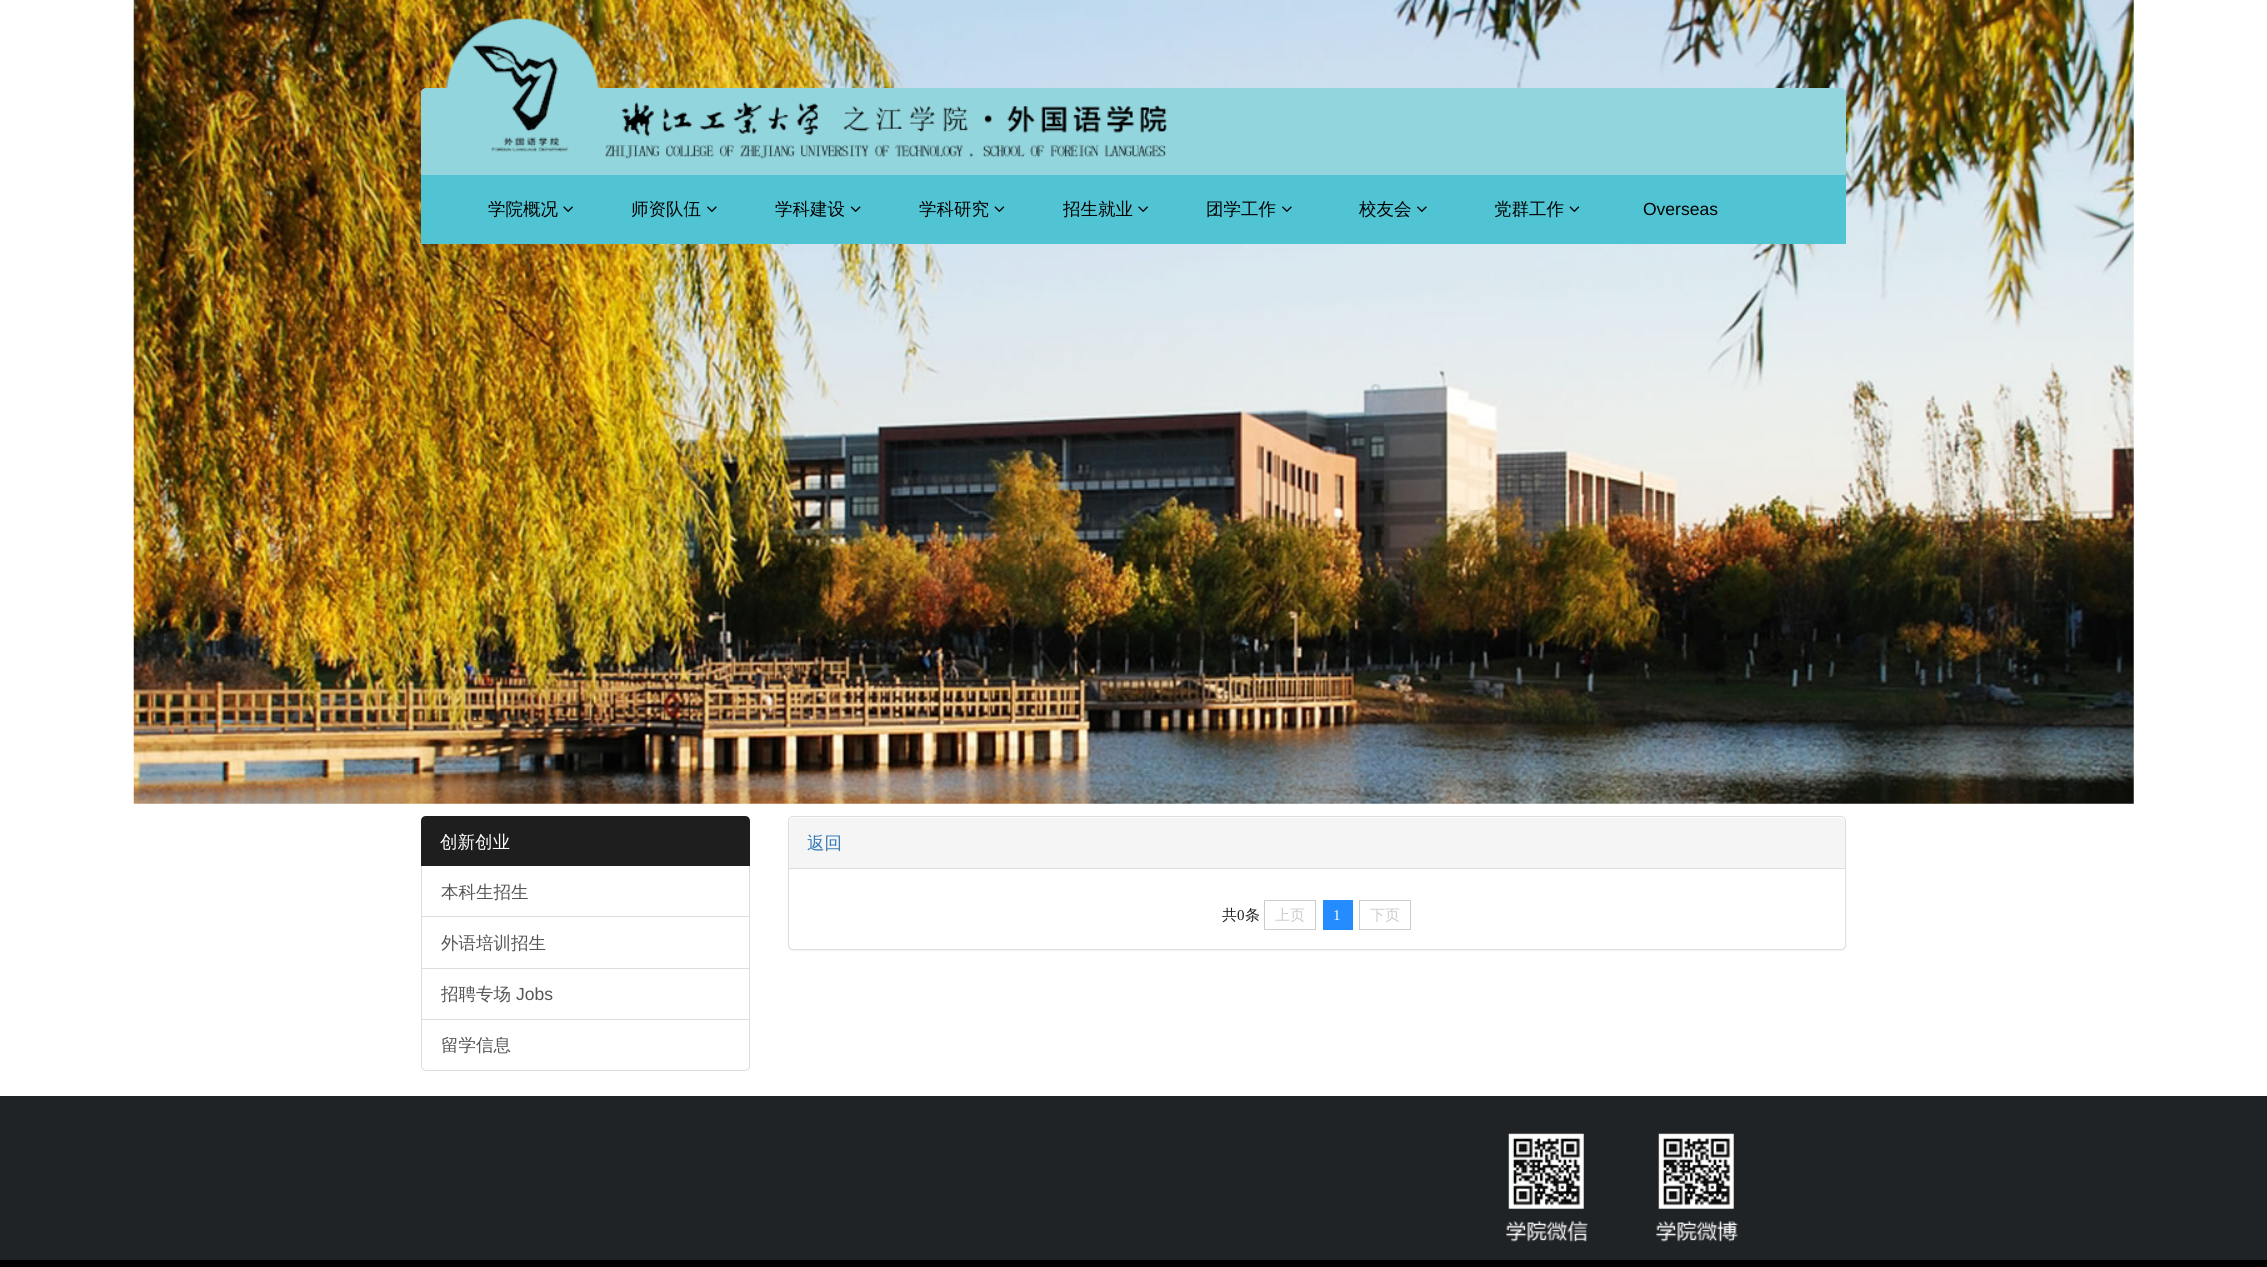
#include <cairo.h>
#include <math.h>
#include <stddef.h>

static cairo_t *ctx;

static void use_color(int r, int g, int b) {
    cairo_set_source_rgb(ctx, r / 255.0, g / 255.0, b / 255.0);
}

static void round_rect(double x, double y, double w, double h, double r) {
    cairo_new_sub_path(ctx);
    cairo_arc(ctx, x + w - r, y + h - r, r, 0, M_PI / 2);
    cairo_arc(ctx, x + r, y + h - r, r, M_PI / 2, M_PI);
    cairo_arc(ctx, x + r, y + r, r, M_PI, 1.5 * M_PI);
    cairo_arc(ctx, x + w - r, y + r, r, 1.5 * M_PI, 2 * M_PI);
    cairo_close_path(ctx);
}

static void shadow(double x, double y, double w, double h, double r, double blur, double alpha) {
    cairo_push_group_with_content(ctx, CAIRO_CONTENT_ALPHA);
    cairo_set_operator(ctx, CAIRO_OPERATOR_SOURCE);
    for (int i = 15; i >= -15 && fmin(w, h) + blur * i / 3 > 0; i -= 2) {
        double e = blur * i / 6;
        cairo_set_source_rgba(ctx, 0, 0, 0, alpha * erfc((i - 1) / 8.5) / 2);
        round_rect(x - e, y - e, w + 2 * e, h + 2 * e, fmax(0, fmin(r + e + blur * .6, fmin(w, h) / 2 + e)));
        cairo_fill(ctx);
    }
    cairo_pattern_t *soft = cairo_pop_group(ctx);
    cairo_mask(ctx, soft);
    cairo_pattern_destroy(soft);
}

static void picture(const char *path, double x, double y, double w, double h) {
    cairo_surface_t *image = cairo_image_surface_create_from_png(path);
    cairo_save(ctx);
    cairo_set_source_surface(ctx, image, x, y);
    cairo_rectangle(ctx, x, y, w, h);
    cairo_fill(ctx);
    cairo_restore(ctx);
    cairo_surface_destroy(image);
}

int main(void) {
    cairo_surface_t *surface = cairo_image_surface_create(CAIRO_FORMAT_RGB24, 2267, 1267);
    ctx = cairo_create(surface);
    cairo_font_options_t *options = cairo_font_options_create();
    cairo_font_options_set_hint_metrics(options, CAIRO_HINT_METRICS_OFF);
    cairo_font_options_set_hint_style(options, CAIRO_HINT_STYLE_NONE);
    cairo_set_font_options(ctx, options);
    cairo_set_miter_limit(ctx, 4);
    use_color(255, 255, 255);
    cairo_paint(ctx);
    picture("img1.png", 133, 0, 2001, 804);
    use_color(147, 213, 220);
    round_rect(421, 88, 1425, 91, 5);
    cairo_fill(ctx);
    picture("img2.png", 446, 18, 721, 141);
    use_color(81, 196, 211);
    cairo_rectangle(ctx, 421, 175, 1425, 69);
    cairo_fill(ctx);
    cairo_select_font_face(ctx, "WenQuanYi Zen Hei Medium", CAIRO_FONT_SLANT_NORMAL, CAIRO_FONT_WEIGHT_NORMAL);
    cairo_set_font_size(ctx, 17.5);
    use_color(0, 0, 0);
    cairo_move_to(ctx, 488, 215);
    cairo_show_text(ctx, "学院概况");
    picture("img3.png", 563, 206, 10, 6);
    cairo_move_to(ctx, 631, 215);
    cairo_show_text(ctx, "师资队伍");
    picture("img4.png", 707, 206, 10, 6);
    cairo_move_to(ctx, 775, 215);
    cairo_show_text(ctx, "学科建设");
    picture("img5.png", 850, 206, 11, 6);
    cairo_move_to(ctx, 919, 215);
    cairo_show_text(ctx, "学科研究");
    picture("img6.png", 994, 206, 11, 6);
    cairo_move_to(ctx, 1063, 215);
    cairo_show_text(ctx, "招生就业");
    picture("img3.png", 1138, 206, 10, 6);
    cairo_move_to(ctx, 1206, 215);
    cairo_show_text(ctx, "团学工作");
    picture("img4.png", 1282, 206, 10, 6);
    cairo_move_to(ctx, 1359, 215);
    cairo_show_text(ctx, "校友会");
    picture("img4.png", 1417, 206, 10, 6);
    cairo_move_to(ctx, 1494, 215);
    cairo_show_text(ctx, "党群工作");
    picture("img6.png", 1569, 206, 11, 6);
    cairo_select_font_face(ctx, "Liberation Sans", CAIRO_FONT_SLANT_NORMAL, CAIRO_FONT_WEIGHT_NORMAL);
    cairo_move_to(ctx, 1643, 215);
    cairo_show_text(ctx, "Overseas");
    cairo_rectangle(ctx, 421.5, 865.5, 328, 52);
    use_color(221, 221, 221);
    cairo_set_line_width(ctx, 1);
    cairo_stroke(ctx);
    use_color(30, 30, 30);
    cairo_new_path(ctx);
    cairo_move_to(ctx, 426, 816);
    cairo_line_to(ctx, 745, 816);
    cairo_curve_to(ctx, 748, 816, 750, 818, 750, 821);
    cairo_line_to(ctx, 750, 866);
    cairo_line_to(ctx, 421, 866);
    cairo_line_to(ctx, 421, 821);
    cairo_curve_to(ctx, 421, 818, 423, 816, 426, 816);
    cairo_close_path(ctx);
    cairo_fill(ctx);
    cairo_select_font_face(ctx, "WenQuanYi Zen Hei Medium", CAIRO_FONT_SLANT_NORMAL, CAIRO_FONT_WEIGHT_NORMAL);
    use_color(255, 255, 255);
    cairo_move_to(ctx, 440, 848);
    cairo_show_text(ctx, "创新创业");
    use_color(85, 85, 85);
    cairo_move_to(ctx, 441, 898);
    cairo_show_text(ctx, "本科生招生");
    use_color(255, 255, 255);
    cairo_rectangle(ctx, 422, 917, 327, 1);
    cairo_fill(ctx);
    cairo_rectangle(ctx, 421.5, 916.5, 328, 52);
    use_color(221, 221, 221);
    cairo_stroke(ctx);
    use_color(85, 85, 85);
    cairo_move_to(ctx, 441, 949);
    cairo_show_text(ctx, "外语培训招生");
    cairo_rectangle(ctx, 421.5, 968.5, 328, 51);
    use_color(221, 221, 221);
    cairo_stroke(ctx);
    use_color(85, 85, 85);
    cairo_move_to(ctx, 441, 1000);
    cairo_show_text(ctx, "招聘专场");
    cairo_select_font_face(ctx, "Liberation Sans", CAIRO_FONT_SLANT_NORMAL, CAIRO_FONT_WEIGHT_NORMAL);
    cairo_move_to(ctx, 516, 1000);
    cairo_show_text(ctx, "Jobs");
    use_color(255, 255, 255);
    cairo_new_path(ctx);
    cairo_move_to(ctx, 421.5, 1019.5);
    cairo_line_to(ctx, 749.5, 1019.5);
    cairo_line_to(ctx, 749.5, 1066);
    cairo_curve_to(ctx, 749.5, 1068.5, 747.5, 1070.5, 745, 1070.5);
    cairo_line_to(ctx, 426, 1070.5);
    cairo_curve_to(ctx, 423.5, 1070.5, 421.5, 1068.5, 421.5, 1066);
    cairo_close_path(ctx);
    cairo_fill_preserve(ctx);
    use_color(221, 221, 221);
    cairo_stroke(ctx);
    cairo_select_font_face(ctx, "WenQuanYi Zen Hei Medium", CAIRO_FONT_SLANT_NORMAL, CAIRO_FONT_WEIGHT_NORMAL);
    use_color(85, 85, 85);
    cairo_move_to(ctx, 441, 1051);
    cairo_show_text(ctx, "留学信息");
    use_color(0, 0, 0);
    shadow(788, 818, 1058, 133, 5, 0.5, 0.05);
    use_color(255, 255, 255);
    round_rect(788.5, 816.5, 1057, 133, 4.5);
    cairo_fill_preserve(ctx);
    use_color(221, 221, 221);
    cairo_stroke(ctx);
    use_color(245, 245, 245);
    cairo_new_path(ctx);
    cairo_move_to(ctx, 793, 818);
    cairo_line_to(ctx, 1841, 818);
    cairo_curve_to(ctx, 1843, 818, 1845, 820, 1845, 822);
    cairo_line_to(ctx, 1845, 869);
    cairo_line_to(ctx, 789, 869);
    cairo_line_to(ctx, 789, 822);
    cairo_curve_to(ctx, 789, 820, 791, 818, 793, 818);
    cairo_close_path(ctx);
    cairo_fill(ctx);
    use_color(221, 221, 221);
    cairo_rectangle(ctx, 789, 868, 1056, 1);
    cairo_fill(ctx);
    use_color(51, 122, 183);
    cairo_move_to(ctx, 807, 849);
    cairo_show_text(ctx, "返回");
    cairo_set_font_size(ctx, 15);
    use_color(34, 34, 34);
    cairo_move_to(ctx, 1222, 920);
    cairo_show_text(ctx, "共");
    cairo_select_font_face(ctx, "Liberation Serif", CAIRO_FONT_SLANT_NORMAL, CAIRO_FONT_WEIGHT_NORMAL);
    cairo_move_to(ctx, 1237, 920);
    cairo_show_text(ctx, "0");
    cairo_select_font_face(ctx, "WenQuanYi Zen Hei Medium", CAIRO_FONT_SLANT_NORMAL, CAIRO_FONT_WEIGHT_NORMAL);
    cairo_move_to(ctx, 1245, 920);
    cairo_show_text(ctx, "条");
    cairo_rectangle(ctx, 1264.5, 900.5, 51, 29);
    use_color(204, 204, 204);
    cairo_stroke(ctx);
    cairo_move_to(ctx, 1275, 920);
    cairo_show_text(ctx, "上页");
    use_color(37, 140, 255);
    cairo_rectangle(ctx, 1323, 900, 30, 30);
    cairo_fill(ctx);
    cairo_select_font_face(ctx, "Liberation Serif", CAIRO_FONT_SLANT_NORMAL, CAIRO_FONT_WEIGHT_NORMAL);
    use_color(255, 255, 255);
    cairo_move_to(ctx, 1333, 920);
    cairo_show_text(ctx, "1");
    cairo_rectangle(ctx, 1359.5, 900.5, 51, 29);
    use_color(204, 204, 204);
    cairo_stroke(ctx);
    cairo_select_font_face(ctx, "WenQuanYi Zen Hei Medium", CAIRO_FONT_SLANT_NORMAL, CAIRO_FONT_WEIGHT_NORMAL);
    cairo_move_to(ctx, 1370, 920);
    cairo_show_text(ctx, "下页");
    use_color(31, 35, 37);
    cairo_rectangle(ctx, 0, 1096, 2267, 164);
    cairo_fill(ctx);
    picture("img7.png", 1506, 1133, 232, 109);
    use_color(0, 0, 0);
    cairo_rectangle(ctx, 0, 1260, 2267, 7);
    cairo_fill(ctx);
    cairo_surface_write_to_png(surface, "result.png");
    cairo_font_options_destroy(options);
    cairo_destroy(ctx);
    cairo_surface_destroy(surface);
    return 0;
}
